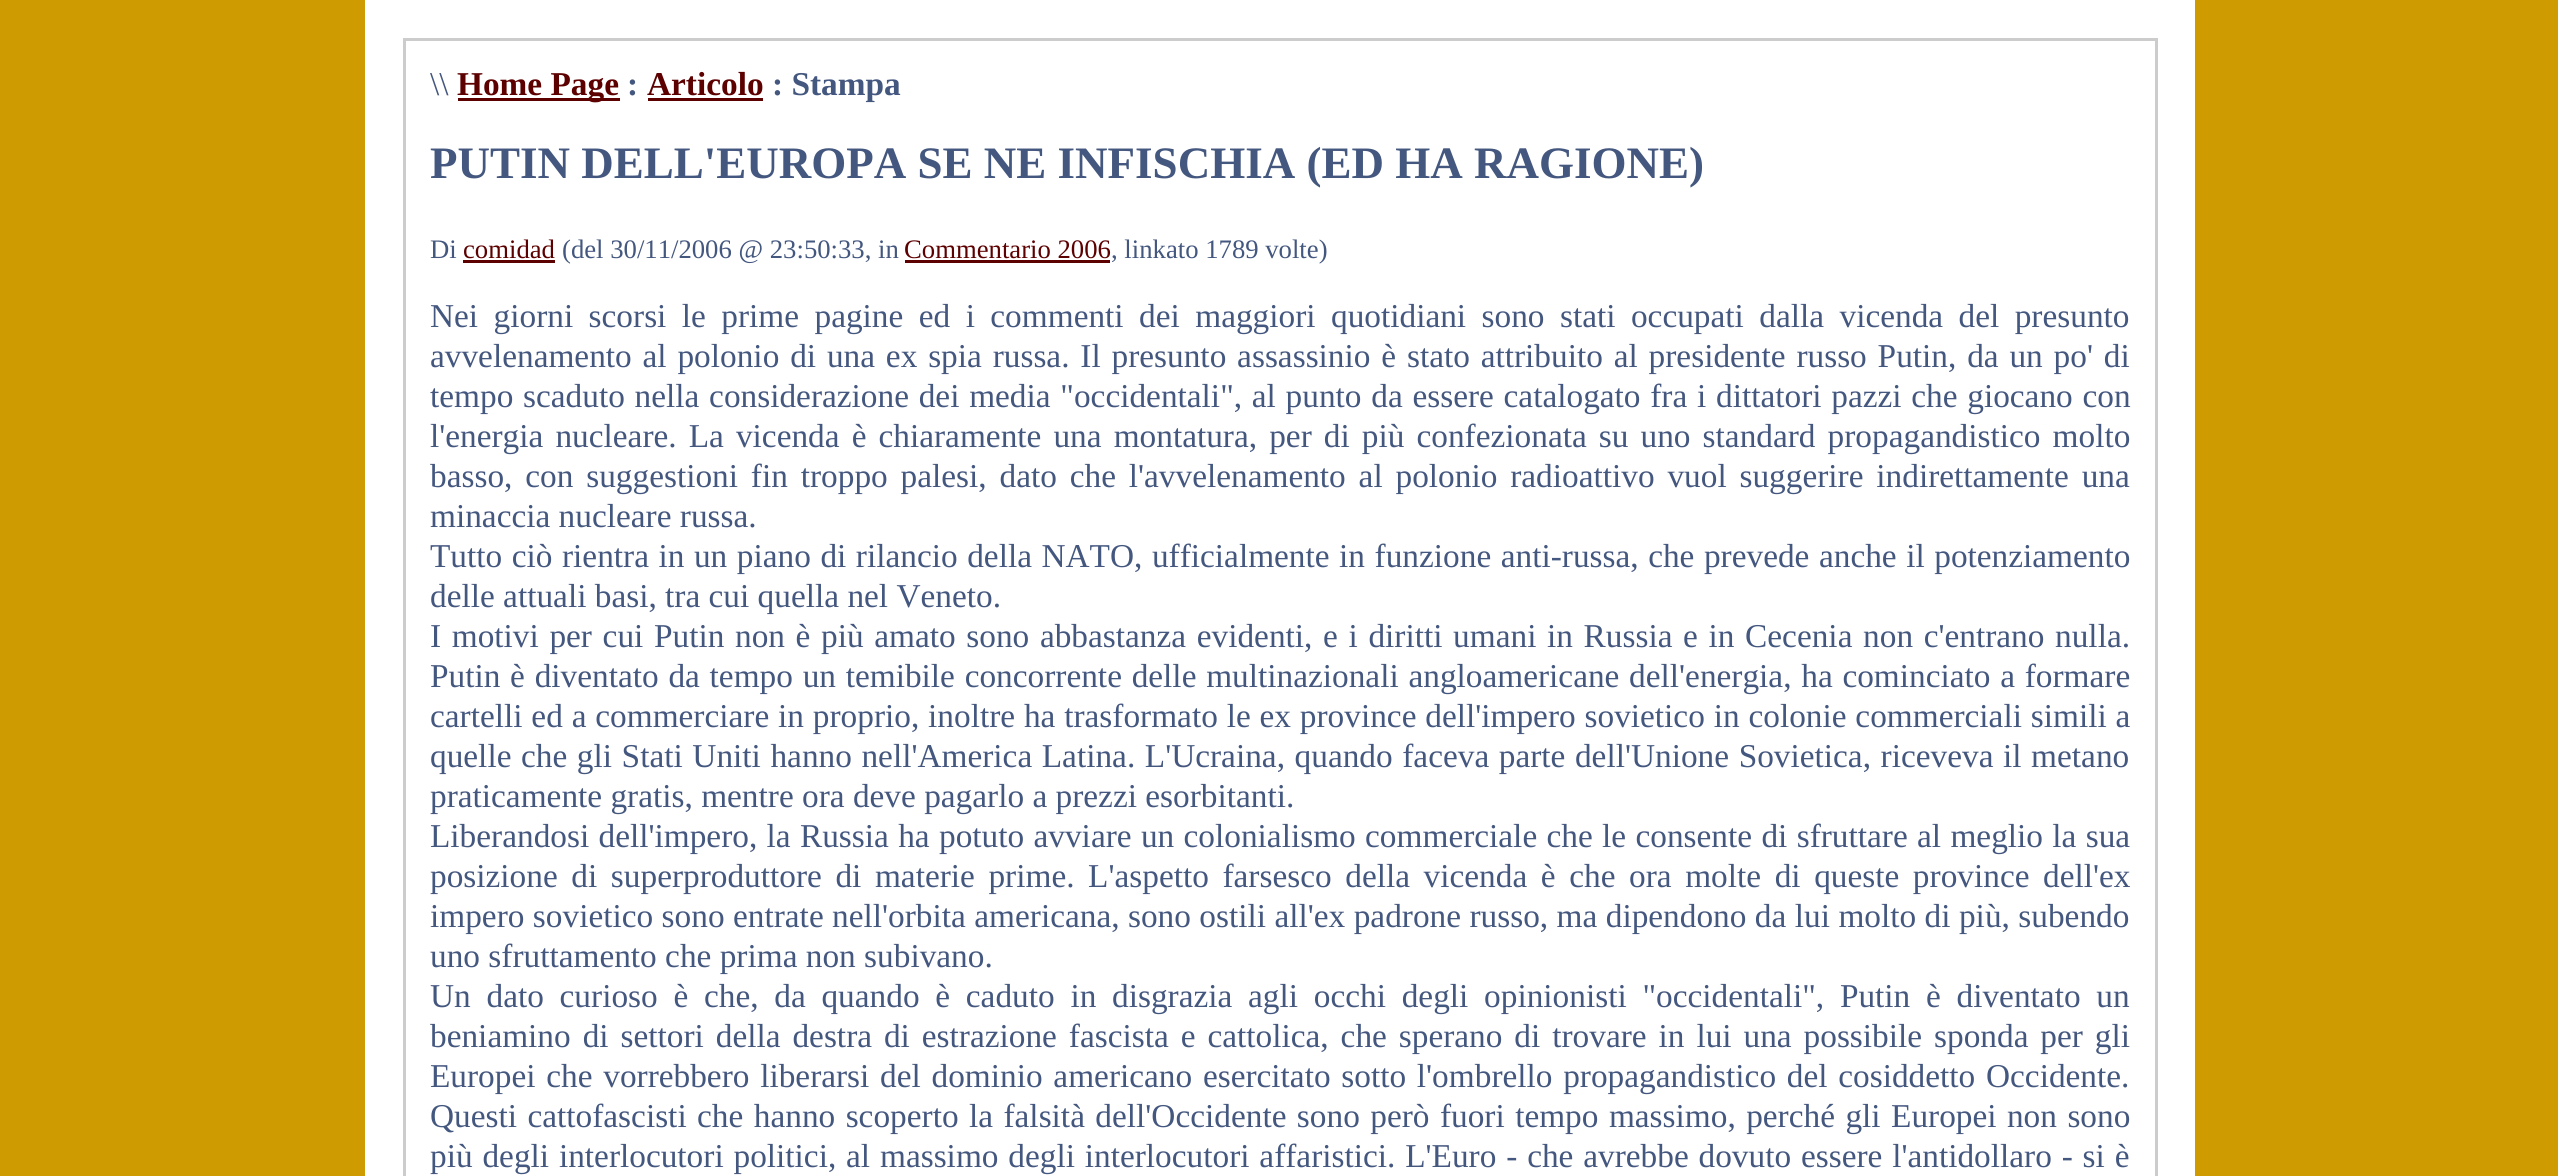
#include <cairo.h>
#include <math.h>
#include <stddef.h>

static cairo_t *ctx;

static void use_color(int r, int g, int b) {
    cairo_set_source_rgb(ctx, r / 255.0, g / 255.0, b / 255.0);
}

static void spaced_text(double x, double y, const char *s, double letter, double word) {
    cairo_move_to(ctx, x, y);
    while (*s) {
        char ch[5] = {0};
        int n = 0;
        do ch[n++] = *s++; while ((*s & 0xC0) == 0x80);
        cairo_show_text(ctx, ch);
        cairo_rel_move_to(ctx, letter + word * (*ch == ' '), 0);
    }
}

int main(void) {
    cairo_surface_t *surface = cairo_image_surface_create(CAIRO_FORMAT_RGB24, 2558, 1176);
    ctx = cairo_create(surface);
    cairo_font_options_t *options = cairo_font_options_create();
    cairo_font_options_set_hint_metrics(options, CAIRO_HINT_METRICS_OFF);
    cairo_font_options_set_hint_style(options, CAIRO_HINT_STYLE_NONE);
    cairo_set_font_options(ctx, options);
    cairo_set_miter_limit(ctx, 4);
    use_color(206, 155, 1);
    cairo_paint(ctx);
    use_color(255, 255, 255);
    cairo_rectangle(ctx, 365, 0, 1830, 1176);
    cairo_fill(ctx);
    use_color(204, 204, 204);
    cairo_rectangle(ctx, 403, 38, 1755, 3);
    cairo_fill(ctx);
    cairo_rectangle(ctx, 2155, 38, 3, 1138);
    cairo_fill(ctx);
    cairo_rectangle(ctx, 403, 38, 3, 1138);
    cairo_fill(ctx);
    cairo_select_font_face(ctx, "Liberation Serif", CAIRO_FONT_SLANT_NORMAL, CAIRO_FONT_WEIGHT_NORMAL);
    cairo_set_font_size(ctx, 33.33);
    use_color(68, 87, 127);
    cairo_move_to(ctx, 430, 95);
    cairo_show_text(ctx, "\\\\");
    use_color(92, 0, 0);
    cairo_rectangle(ctx, 458, 98, 162, 3);
    cairo_fill(ctx);
    cairo_select_font_face(ctx, "Liberation Serif", CAIRO_FONT_SLANT_NORMAL, CAIRO_FONT_WEIGHT_BOLD);
    cairo_move_to(ctx, 457, 95);
    cairo_show_text(ctx, "Home Page");
    use_color(68, 87, 127);
    cairo_move_to(ctx, 627, 95);
    cairo_show_text(ctx, ":");
    use_color(92, 0, 0);
    cairo_move_to(ctx, 647, 95);
    cairo_show_text(ctx, "Articolo");
    cairo_rectangle(ctx, 648, 98, 115, 3);
    cairo_fill(ctx);
    use_color(68, 87, 127);
    cairo_move_to(ctx, 772, 95);
    cairo_show_text(ctx, ": Stampa");
    cairo_set_font_size(ctx, 45);
    cairo_move_to(ctx, 430, 178);
    cairo_show_text(ctx, "PUTIN DELL'EUROPA SE NE INFISCHIA (ED HA RAGIONE)");
    cairo_select_font_face(ctx, "Liberation Serif", CAIRO_FONT_SLANT_NORMAL, CAIRO_FONT_WEIGHT_NORMAL);
    cairo_set_font_size(ctx, 26.7);
    cairo_move_to(ctx, 430, 258);
    cairo_show_text(ctx, "Di");
    use_color(92, 0, 0);
    cairo_move_to(ctx, 463, 258);
    cairo_show_text(ctx, "comidad");
    cairo_rectangle(ctx, 463, 260, 92, 3);
    cairo_fill(ctx);
    use_color(68, 87, 127);
    cairo_move_to(ctx, 562, 258);
    cairo_show_text(ctx, "(del 30/11/2006 @ 23:50:33, in");
    use_color(92, 0, 0);
    cairo_move_to(ctx, 904, 258);
    cairo_show_text(ctx, "Commentario 2006");
    cairo_rectangle(ctx, 905, 260, 205, 3);
    cairo_fill(ctx);
    use_color(68, 87, 127);
    cairo_move_to(ctx, 1111, 258);
    cairo_show_text(ctx, ", linkato 1789 volte)");
    cairo_set_font_size(ctx, 33.33);
    spaced_text(430, 327, "Nei giorni scorsi le prime pagine ed i commenti dei maggiori quotidiani sono stati occupati dalla vicenda del presunto", 0, 7.1);
    spaced_text(430, 367, "avvelenamento al polonio di una ex spia russa. Il presunto assassinio è stato attribuito al presidente russo Putin, da un po' di", 0, 2.5);
    spaced_text(430, 407, "tempo scaduto nella considerazione dei media \"occidentali\", al punto da essere catalogato fra i dittatori pazzi che giocano con", 0, 1.4);
    spaced_text(430, 447, "l'energia nucleare. La vicenda è chiaramente una montatura, per di più confezionata su uno standard propagandistico molto", 0, 3.75);
    spaced_text(430, 487, "basso, con suggestioni fin troppo palesi, dato che l'avvelenamento al polonio radioattivo vuol suggerire indirettamente una", 0, 4.5);
    cairo_move_to(ctx, 430, 527);
    cairo_show_text(ctx, "minaccia nucleare russa.");
    spaced_text(430, 567, "Tutto ciò rientra in un piano di rilancio della NATO, ufficialmente in funzione anti-russa, che prevede anche il potenziamento", 0, 1.2);
    cairo_move_to(ctx, 430, 607);
    cairo_show_text(ctx, "delle attuali basi, tra cui quella nel Veneto.");
    spaced_text(430, 647, "I motivi per cui Putin non è più amato sono abbastanza evidenti, e i diritti umani in Russia e in Cecenia non c'entrano nulla.", 0, 2.3);
    spaced_text(430, 687, "Putin è diventato da tempo un temibile concorrente delle multinazionali angloamericane dell'energia, ha cominciato a formare", 0, 1.4);
    spaced_text(430, 727, "cartelli ed a commerciare in proprio, inoltre ha trasformato le ex province dell'impero sovietico in colonie commerciali simili a", 0, 0.5);
    spaced_text(430, 767, "quelle che gli Stati Uniti hanno nell'America Latina. L'Ucraina, quando faceva parte dell'Unione Sovietica, riceveva il metano", 0, 1.25);
    cairo_move_to(ctx, 430, 807);
    cairo_show_text(ctx, "praticamente gratis, mentre ora deve pagarlo a prezzi esorbitanti.");
    spaced_text(430, 847, "Liberandosi dell'impero, la Russia ha potuto avviare un colonialismo commerciale che le consente di sfruttare al meglio la sua", 0, 1);
    spaced_text(430, 887, "posizione di superproduttore di materie prime. L'aspetto farsesco della vicenda è che ora molte di queste province dell'ex", 0, 5.25);
    spaced_text(430, 927, "impero sovietico sono entrate nell'orbita americana, sono ostili all'ex padrone russo, ma dipendono da lui molto di più, subendo", 0, 0.1);
    cairo_move_to(ctx, 430, 967);
    cairo_show_text(ctx, "uno sfruttamento che prima non subivano.");
    spaced_text(430, 1007, "Un dato curioso è che, da quando è caduto in disgrazia agli occhi degli opinionisti \"occidentali\", Putin è diventato un", 0, 7.4);
    spaced_text(430, 1047, "beniamino di settori della destra di estrazione fascista e cattolica, che sperano di trovare in lui una possibile sponda per gli", 0, 3.6);
    spaced_text(430, 1087, "Europei che vorrebbero liberarsi del dominio americano esercitato sotto l'ombrello propagandistico del cosiddetto Occidente.", 0, 2.4);
    spaced_text(430, 1127, "Questi cattofascisti che hanno scoperto la falsità dell'Occidente sono però fuori tempo massimo, perché gli Europei non sono", 0, 2.1);
    spaced_text(430, 1167, "più degli interlocutori politici, al massimo degli interlocutori affaristici. L'Euro - che avrebbe dovuto essere l'antidollaro - si è", 0, 1.5);
    cairo_surface_write_to_png(surface, "result.png");
    cairo_font_options_destroy(options);
    cairo_destroy(ctx);
    cairo_surface_destroy(surface);
    return 0;
}
